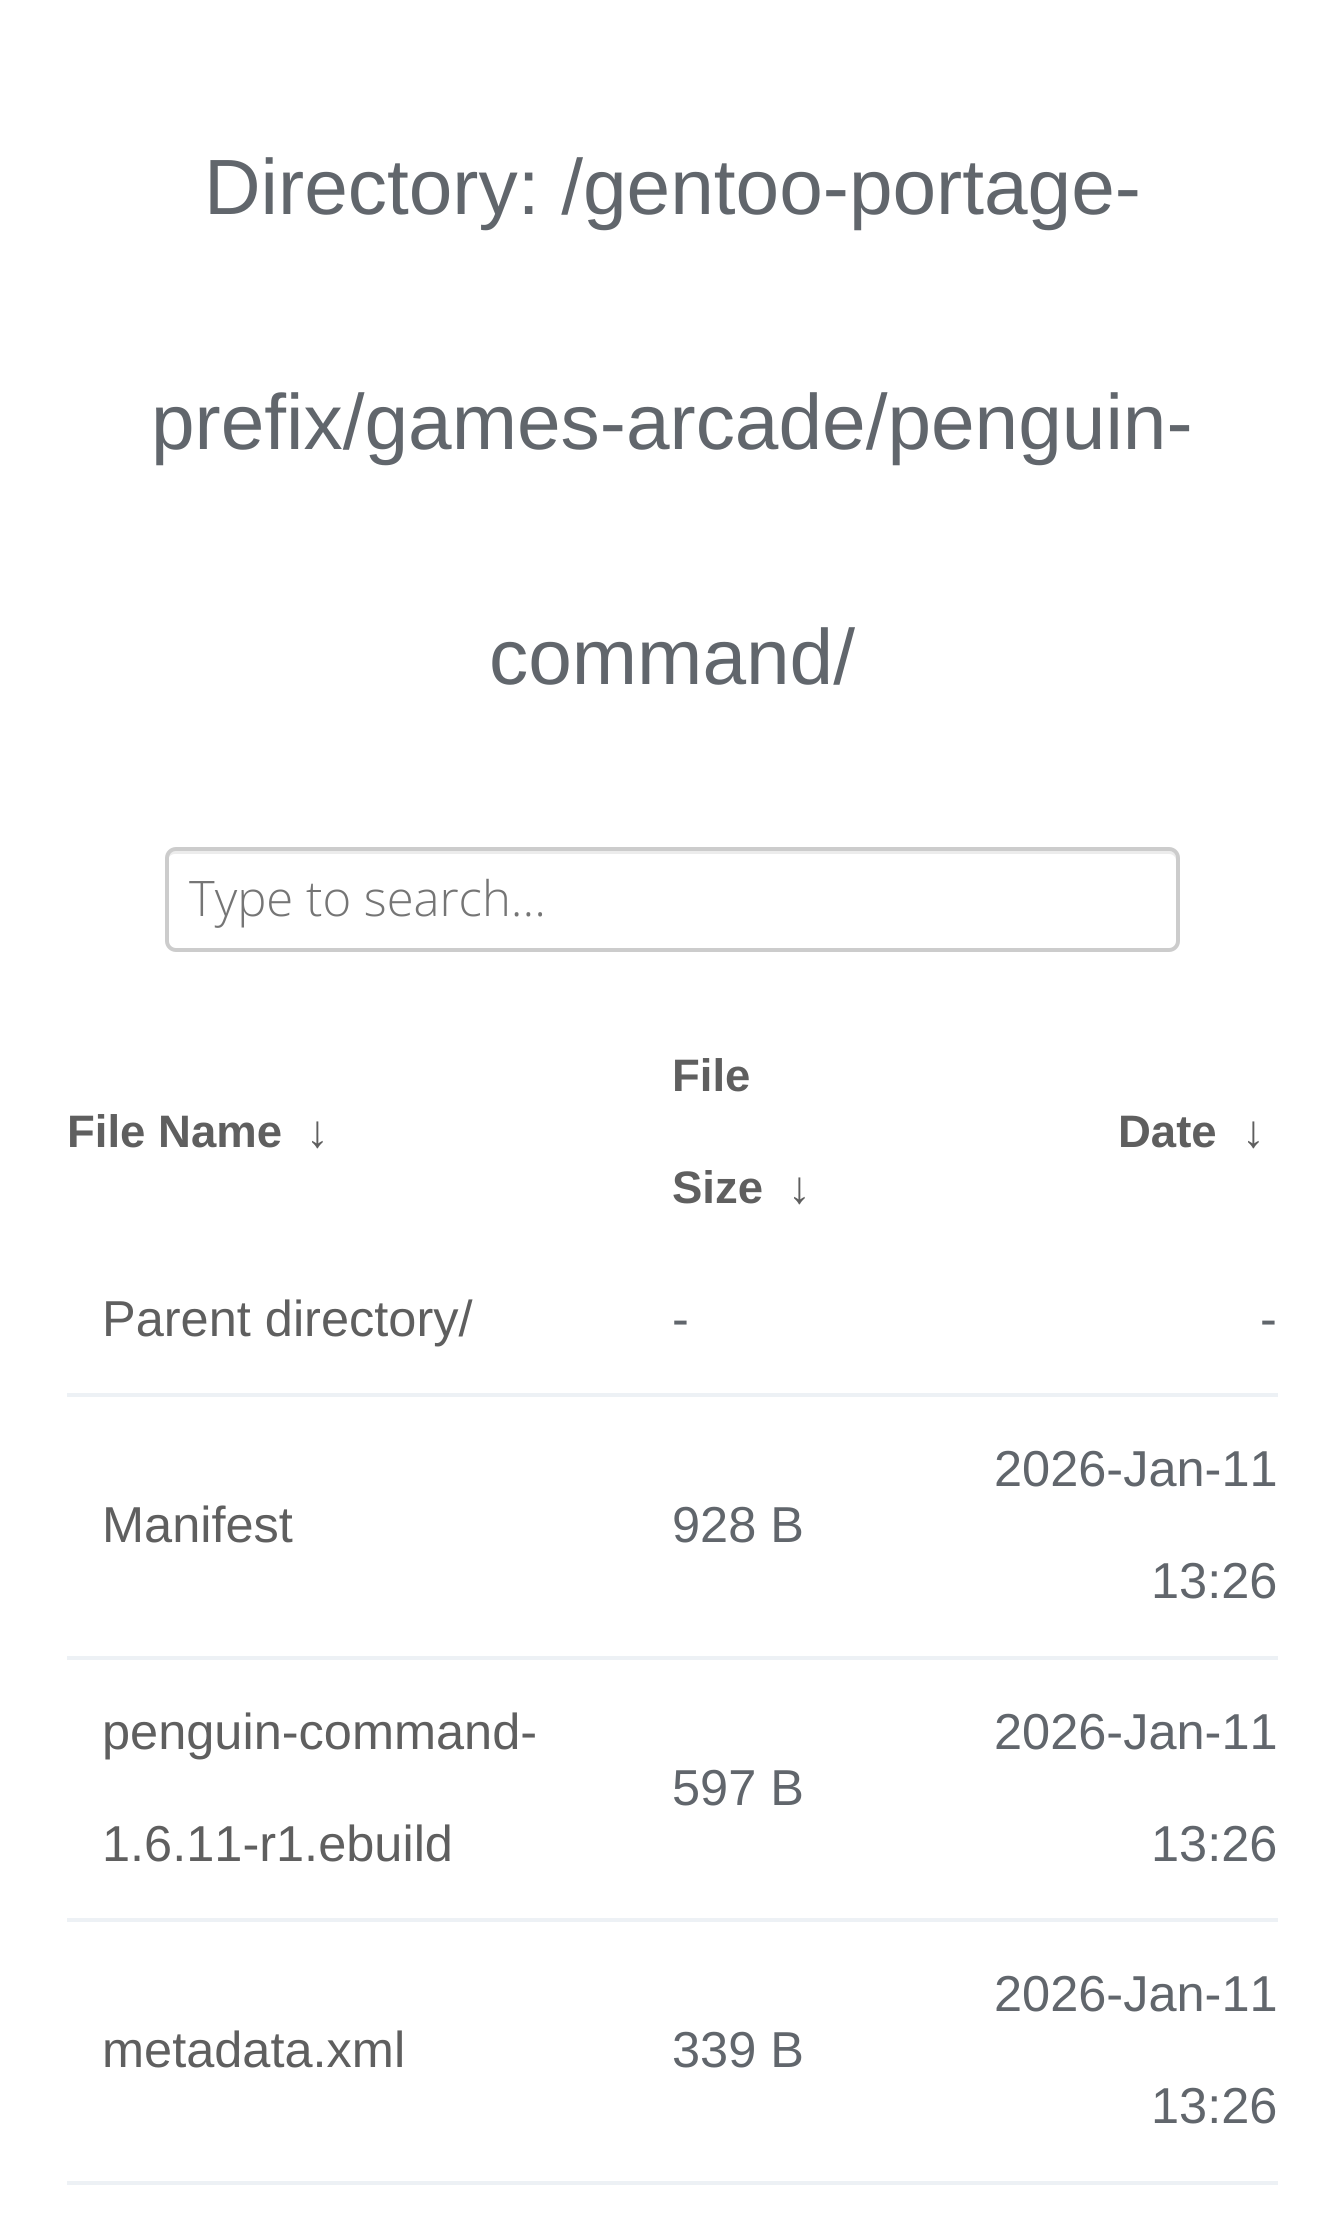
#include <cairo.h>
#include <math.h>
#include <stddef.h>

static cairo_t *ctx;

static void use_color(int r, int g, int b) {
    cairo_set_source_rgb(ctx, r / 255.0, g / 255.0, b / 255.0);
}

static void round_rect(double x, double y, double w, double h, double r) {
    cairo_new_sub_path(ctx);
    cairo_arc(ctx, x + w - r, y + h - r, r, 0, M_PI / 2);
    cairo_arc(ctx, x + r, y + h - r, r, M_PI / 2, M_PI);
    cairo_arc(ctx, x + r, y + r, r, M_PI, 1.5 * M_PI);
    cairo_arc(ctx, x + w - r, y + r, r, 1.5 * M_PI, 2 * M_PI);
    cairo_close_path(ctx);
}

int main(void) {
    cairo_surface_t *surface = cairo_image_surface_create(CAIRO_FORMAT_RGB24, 1341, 2232);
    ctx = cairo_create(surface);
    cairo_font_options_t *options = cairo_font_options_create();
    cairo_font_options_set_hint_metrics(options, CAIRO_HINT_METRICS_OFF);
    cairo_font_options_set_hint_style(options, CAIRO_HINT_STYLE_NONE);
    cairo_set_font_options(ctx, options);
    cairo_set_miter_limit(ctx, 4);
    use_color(255, 255, 255);
    cairo_paint(ctx);
    cairo_select_font_face(ctx, "Liberation Sans", CAIRO_FONT_SLANT_NORMAL, CAIRO_FONT_WEIGHT_NORMAL);
    cairo_set_font_size(ctx, 78.4);
    use_color(97, 102, 108);
    cairo_move_to(ctx, 204, 214);
    cairo_show_text(ctx, "Directory: /gentoo-portage-");
    cairo_move_to(ctx, 151, 449);
    cairo_show_text(ctx, "prefix/games-arcade/penguin-");
    cairo_move_to(ctx, 489, 684);
    cairo_show_text(ctx, "command/");
    use_color(236, 236, 236);
    cairo_new_path(ctx);
    cairo_move_to(ctx, 175, 854);
    cairo_line_to(ctx, 1169, 854);
    cairo_curve_to(ctx, 1173, 854, 1176, 857, 1176, 861);
    cairo_line_to(ctx, 1176, 858);
    cairo_curve_to(ctx, 1176, 854, 1173, 851, 1169, 851);
    cairo_line_to(ctx, 175, 851);
    cairo_curve_to(ctx, 171, 851, 168, 854, 168, 858);
    cairo_line_to(ctx, 168, 861);
    cairo_curve_to(ctx, 168, 857, 171, 854, 175, 854);
    cairo_close_path(ctx);
    cairo_fill(ctx);
    round_rect(167, 849, 1011, 101, 9);
    use_color(204, 204, 204);
    cairo_set_line_width(ctx, 4);
    cairo_stroke(ctx);
    cairo_select_font_face(ctx, "Open Sans Light", CAIRO_FONT_SLANT_NORMAL, CAIRO_FONT_WEIGHT_NORMAL);
    cairo_set_font_size(ctx, 49);
    use_color(117, 117, 117);
    cairo_move_to(ctx, 189, 916);
    cairo_show_text(ctx, "Type to search...");
    cairo_select_font_face(ctx, "Liberation Sans", CAIRO_FONT_SLANT_NORMAL, CAIRO_FONT_WEIGHT_BOLD);
    cairo_set_font_size(ctx, 45.5);
    use_color(95, 95, 95);
    cairo_move_to(ctx, 67, 1147);
    cairo_show_text(ctx, "File Name");
    cairo_move_to(ctx, 306, 1147);
    cairo_show_text(ctx, "↓");
    cairo_move_to(ctx, 672, 1091);
    cairo_show_text(ctx, "File");
    cairo_move_to(ctx, 672, 1203);
    cairo_show_text(ctx, "Size");
    cairo_move_to(ctx, 788, 1203);
    cairo_show_text(ctx, "↓");
    cairo_move_to(ctx, 1118, 1147);
    cairo_show_text(ctx, "Date");
    cairo_move_to(ctx, 1242, 1147);
    cairo_show_text(ctx, "↓");
    cairo_select_font_face(ctx, "Liberation Sans", CAIRO_FONT_SLANT_NORMAL, CAIRO_FONT_WEIGHT_NORMAL);
    cairo_set_font_size(ctx, 50.5);
    cairo_move_to(ctx, 102, 1336);
    cairo_show_text(ctx, "Parent directory/");
    use_color(97, 102, 108);
    cairo_move_to(ctx, 672, 1336);
    cairo_show_text(ctx, "-");
    use_color(237, 241, 245);
    cairo_rectangle(ctx, 67, 1393, 1211, 4);
    cairo_fill(ctx);
    use_color(97, 102, 108);
    cairo_move_to(ctx, 1260, 1336);
    cairo_show_text(ctx, "-");
    use_color(95, 95, 95);
    cairo_move_to(ctx, 102, 1542);
    cairo_show_text(ctx, "Manifest");
    use_color(97, 102, 108);
    cairo_move_to(ctx, 672, 1542);
    cairo_show_text(ctx, "928 B");
    use_color(237, 241, 245);
    cairo_rectangle(ctx, 67, 1656, 1211, 4);
    cairo_fill(ctx);
    use_color(97, 102, 108);
    cairo_move_to(ctx, 994, 1486);
    cairo_show_text(ctx, "2026-Jan-11");
    cairo_move_to(ctx, 1151, 1598);
    cairo_show_text(ctx, "13:26");
    use_color(95, 95, 95);
    cairo_move_to(ctx, 102, 1749);
    cairo_show_text(ctx, "penguin-command-");
    cairo_move_to(ctx, 102, 1861);
    cairo_show_text(ctx, "1.6.11-r1.ebuild");
    use_color(97, 102, 108);
    cairo_move_to(ctx, 672, 1805);
    cairo_show_text(ctx, "597 B");
    use_color(237, 241, 245);
    cairo_rectangle(ctx, 67, 1918, 1211, 4);
    cairo_fill(ctx);
    use_color(97, 102, 108);
    cairo_move_to(ctx, 994, 1749);
    cairo_show_text(ctx, "2026-Jan-11");
    cairo_move_to(ctx, 1151, 1861);
    cairo_show_text(ctx, "13:26");
    use_color(95, 95, 95);
    cairo_move_to(ctx, 102, 2067);
    cairo_show_text(ctx, "metadata.xml");
    use_color(97, 102, 108);
    cairo_move_to(ctx, 672, 2067);
    cairo_show_text(ctx, "339 B");
    use_color(237, 241, 245);
    cairo_rectangle(ctx, 67, 2181, 1211, 4);
    cairo_fill(ctx);
    use_color(97, 102, 108);
    cairo_move_to(ctx, 994, 2011);
    cairo_show_text(ctx, "2026-Jan-11");
    cairo_move_to(ctx, 1151, 2123);
    cairo_show_text(ctx, "13:26");
    cairo_surface_write_to_png(surface, "result.png");
    cairo_font_options_destroy(options);
    cairo_destroy(ctx);
    cairo_surface_destroy(surface);
    return 0;
}
